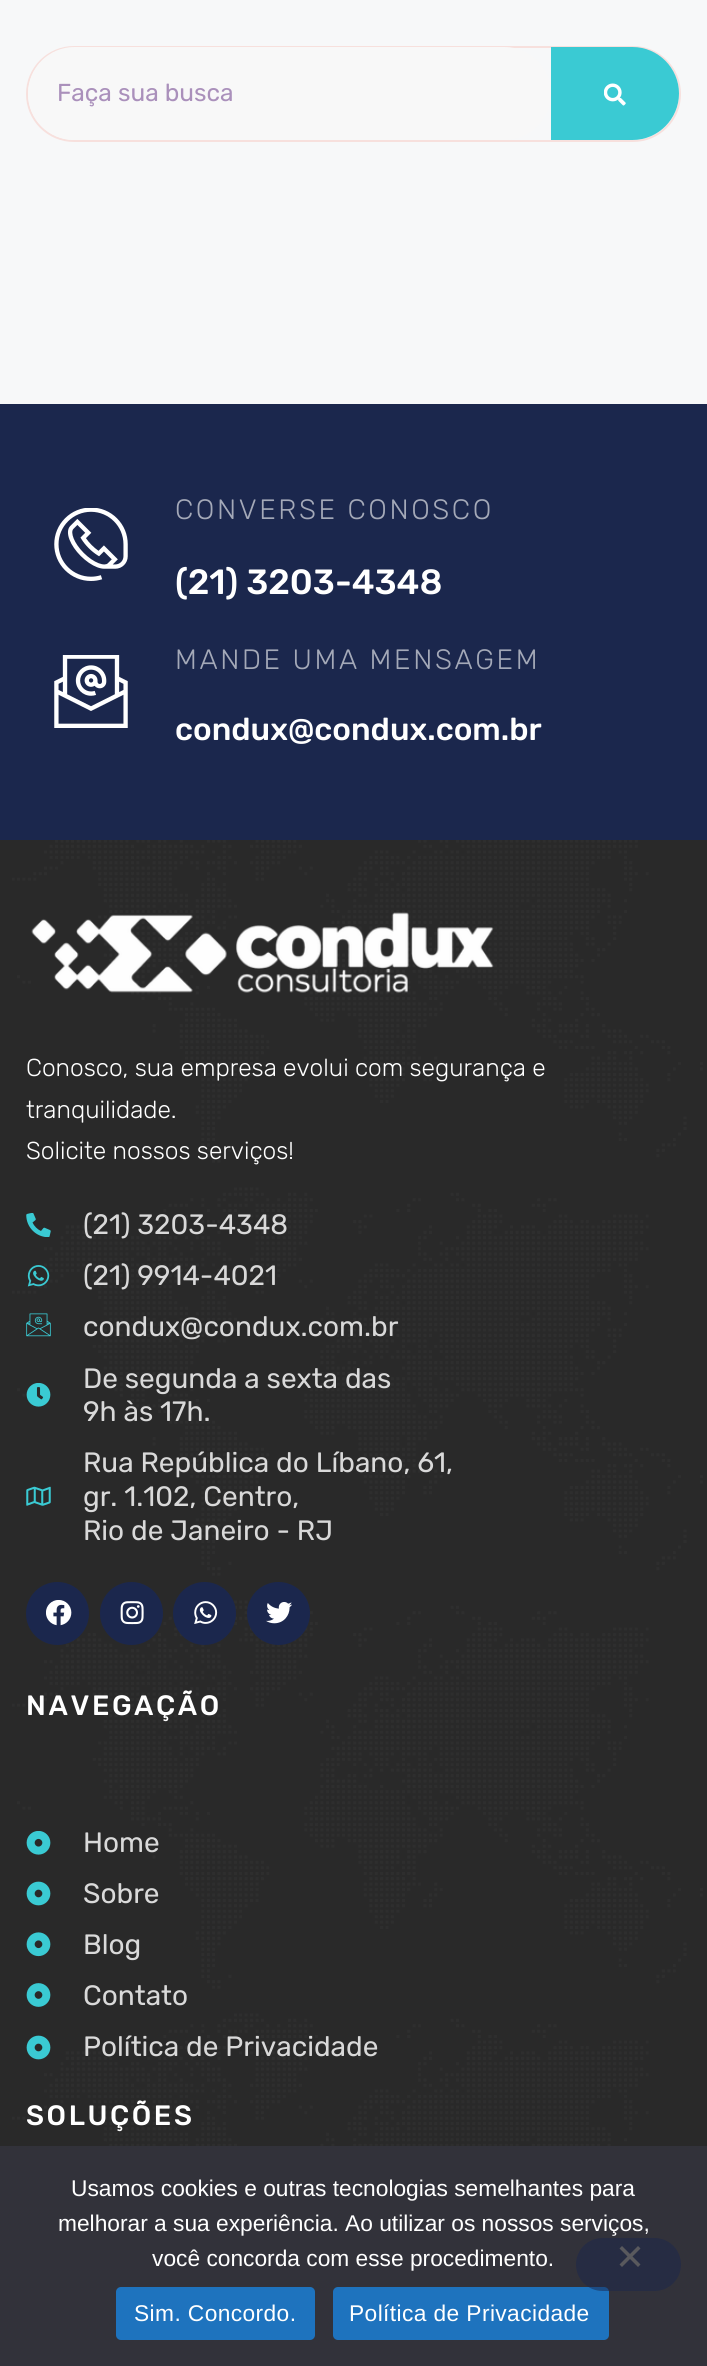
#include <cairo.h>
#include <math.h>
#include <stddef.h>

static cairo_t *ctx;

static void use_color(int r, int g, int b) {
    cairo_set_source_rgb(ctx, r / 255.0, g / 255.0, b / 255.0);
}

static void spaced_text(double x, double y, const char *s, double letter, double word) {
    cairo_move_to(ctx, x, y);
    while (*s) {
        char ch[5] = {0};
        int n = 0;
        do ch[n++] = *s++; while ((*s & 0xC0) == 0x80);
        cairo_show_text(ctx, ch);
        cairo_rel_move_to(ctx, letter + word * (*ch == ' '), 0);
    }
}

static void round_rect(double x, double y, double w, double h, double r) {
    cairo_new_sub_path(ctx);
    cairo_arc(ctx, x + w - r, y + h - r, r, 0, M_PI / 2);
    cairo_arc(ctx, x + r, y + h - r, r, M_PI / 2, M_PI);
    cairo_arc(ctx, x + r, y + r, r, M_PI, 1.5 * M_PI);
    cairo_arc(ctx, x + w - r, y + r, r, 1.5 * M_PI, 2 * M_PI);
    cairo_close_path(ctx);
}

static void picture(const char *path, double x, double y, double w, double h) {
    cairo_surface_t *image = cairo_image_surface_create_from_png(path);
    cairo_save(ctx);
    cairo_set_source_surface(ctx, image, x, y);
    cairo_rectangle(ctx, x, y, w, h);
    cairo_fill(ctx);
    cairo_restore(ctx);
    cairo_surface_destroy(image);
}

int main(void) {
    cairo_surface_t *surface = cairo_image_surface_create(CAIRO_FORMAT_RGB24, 707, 2366);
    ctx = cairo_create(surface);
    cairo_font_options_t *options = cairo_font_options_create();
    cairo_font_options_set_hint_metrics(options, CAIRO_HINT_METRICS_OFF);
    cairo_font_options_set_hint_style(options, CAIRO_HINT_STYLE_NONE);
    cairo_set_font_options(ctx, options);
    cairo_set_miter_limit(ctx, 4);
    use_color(247, 248, 249);
    cairo_paint(ctx);
    round_rect(27, 47, 653, 94, 47);
    use_color(247, 224, 221);
    cairo_stroke(ctx);
    use_color(248, 248, 248);
    round_rect(28, 47, 523, 93, 46.5);
    cairo_fill(ctx);
    cairo_select_font_face(ctx, "Rubik", CAIRO_FONT_SLANT_NORMAL, CAIRO_FONT_WEIGHT_NORMAL);
    cairo_set_font_size(ctx, 24.5);
    use_color(170, 144, 187);
    cairo_move_to(ctx, 57, 101);
    cairo_show_text(ctx, "Faça sua busca");
    use_color(58, 202, 211);
    cairo_new_path(ctx);
    cairo_move_to(ctx, 551, 47);
    cairo_line_to(ctx, 632.5, 47);
    cairo_curve_to(ctx, 658, 47, 679, 68, 679, 93.5);
    cairo_curve_to(ctx, 679, 119, 658, 140, 632.5, 140);
    cairo_line_to(ctx, 551, 140);
    cairo_close_path(ctx);
    cairo_fill(ctx);
    picture("img1.png", 604, 83, 22, 23);
    use_color(27, 39, 77);
    cairo_rectangle(ctx, 0, 404, 707, 436);
    cairo_fill(ctx);
    picture("img2.png", 54, 508, 74, 73);
    cairo_select_font_face(ctx, "Rubik Light", CAIRO_FONT_SLANT_NORMAL, CAIRO_FONT_WEIGHT_NORMAL);
    cairo_set_font_size(ctx, 28);
    use_color(164, 169, 184);
    spaced_text(175, 519, "CONVERSE CONOSCO", 2.6, 0);
    cairo_select_font_face(ctx, "Rubik Medium", CAIRO_FONT_SLANT_NORMAL, CAIRO_FONT_WEIGHT_NORMAL);
    cairo_set_font_size(ctx, 35);
    use_color(255, 255, 255);
    cairo_move_to(ctx, 175, 594);
    cairo_show_text(ctx, "(21) 3203-4348");
    picture("img3.png", 54, 655, 74, 73);
    cairo_select_font_face(ctx, "Rubik Light", CAIRO_FONT_SLANT_NORMAL, CAIRO_FONT_WEIGHT_NORMAL);
    cairo_set_font_size(ctx, 28);
    use_color(164, 169, 184);
    spaced_text(175, 669, "MANDE UMA MENSAGEM", 2.6, 0);
    cairo_select_font_face(ctx, "Rubik Medium", CAIRO_FONT_SLANT_NORMAL, CAIRO_FONT_WEIGHT_NORMAL);
    cairo_set_font_size(ctx, 31.5);
    use_color(255, 255, 255);
    cairo_move_to(ctx, 175, 740);
    cairo_show_text(ctx, "condux@condux.com.br");
    use_color(41, 41, 41);
    cairo_rectangle(ctx, 0, 840, 707, 1306);
    cairo_fill(ctx);
    picture("img4.png", 12, 840, 691, 1306);
    picture("img5.png", 31, 912, 463, 81);
    cairo_select_font_face(ctx, "Rubik Light", CAIRO_FONT_SLANT_NORMAL, CAIRO_FONT_WEIGHT_NORMAL);
    cairo_set_font_size(ctx, 24.5);
    use_color(255, 255, 255);
    cairo_move_to(ctx, 26, 1076);
    cairo_show_text(ctx, "Conosco, sua empresa evolui com segurança e");
    cairo_move_to(ctx, 26, 1118);
    cairo_show_text(ctx, "tranquilidade.");
    cairo_move_to(ctx, 26, 1159);
    cairo_show_text(ctx, "Solicite nossos serviços!");
    picture("img6.png", 26, 1213, 25, 24);
    cairo_select_font_face(ctx, "Rubik", CAIRO_FONT_SLANT_NORMAL, CAIRO_FONT_WEIGHT_NORMAL);
    cairo_set_font_size(ctx, 28);
    use_color(217, 217, 217);
    cairo_move_to(ctx, 83, 1234);
    cairo_show_text(ctx, "(21) 3203-4348");
    picture("img7.png", 27, 1265, 23, 22);
    cairo_move_to(ctx, 83, 1285);
    cairo_show_text(ctx, "(21) 9914-4021");
    picture("img8.png", 26, 1313, 25, 24);
    cairo_move_to(ctx, 83, 1336);
    cairo_show_text(ctx, "condux@condux.com.br");
    picture("img9.png", 26, 1383, 25, 24);
    cairo_move_to(ctx, 83, 1388);
    cairo_show_text(ctx, "De segunda a sexta das");
    cairo_move_to(ctx, 83, 1421);
    cairo_show_text(ctx, "9h às 17h.");
    picture("img10.png", 26, 1486, 25, 20);
    cairo_move_to(ctx, 83, 1472);
    cairo_show_text(ctx, "Rua República do Líbano, 61,");
    cairo_move_to(ctx, 83, 1506);
    cairo_show_text(ctx, "gr. 1.102, Centro,");
    cairo_move_to(ctx, 83, 1540);
    cairo_show_text(ctx, "Rio de Janeiro - RJ");
    use_color(27, 39, 77);
    cairo_new_path(ctx);
    cairo_arc(ctx, 57.5, 1613.5, 31.5, 0, 2 * M_PI);
    cairo_fill(ctx);
    picture("img11.png", 46, 1600, 26, 26);
    cairo_arc(ctx, 131.5, 1613.5, 31.5, 0, 2 * M_PI);
    cairo_fill(ctx);
    picture("img12.png", 120, 1601, 24, 24);
    cairo_arc(ctx, 204.5, 1613.5, 31.5, 0, 2 * M_PI);
    cairo_fill(ctx);
    picture("img13.png", 194, 1601, 24, 23);
    cairo_arc(ctx, 278.5, 1613.5, 31.5, 0, 2 * M_PI);
    cairo_fill(ctx);
    picture("img14.png", 266, 1602, 26, 22);
    cairo_select_font_face(ctx, "Rubik Medium", CAIRO_FONT_SLANT_NORMAL, CAIRO_FONT_WEIGHT_NORMAL);
    use_color(255, 255, 255);
    spaced_text(26, 1715, "NAVEGAÇÃO", 2.6, 0);
    picture("img15.png", 26, 1831, 25, 24);
    cairo_select_font_face(ctx, "Rubik", CAIRO_FONT_SLANT_NORMAL, CAIRO_FONT_WEIGHT_NORMAL);
    use_color(217, 217, 217);
    cairo_move_to(ctx, 83, 1852);
    cairo_show_text(ctx, "Home");
    picture("img16.png", 26, 1881, 25, 25);
    cairo_move_to(ctx, 83, 1903);
    cairo_show_text(ctx, "Sobre");
    picture("img17.png", 26, 1932, 25, 25);
    cairo_move_to(ctx, 83, 1954);
    cairo_show_text(ctx, "Blog");
    picture("img18.png", 26, 1983, 25, 24);
    cairo_move_to(ctx, 83, 2005);
    cairo_show_text(ctx, "Contato");
    picture("img16.png", 26, 2035, 25, 25);
    cairo_move_to(ctx, 83, 2056);
    cairo_show_text(ctx, "Política de Privacidade");
    cairo_select_font_face(ctx, "Rubik Medium", CAIRO_FONT_SLANT_NORMAL, CAIRO_FONT_WEIGHT_NORMAL);
    use_color(255, 255, 255);
    spaced_text(26, 2125, "SOLUÇÕES", 2.6, 0);
    use_color(50, 50, 58);
    cairo_rectangle(ctx, 0, 2146, 707, 220);
    cairo_fill(ctx);
    cairo_select_font_face(ctx, "Liberation Sans", CAIRO_FONT_SLANT_NORMAL, CAIRO_FONT_WEIGHT_NORMAL);
    cairo_set_font_size(ctx, 22.75);
    use_color(255, 255, 255);
    cairo_move_to(ctx, 71, 2196);
    cairo_show_text(ctx, "Usamos cookies e outras tecnologias semelhantes para");
    cairo_move_to(ctx, 58, 2231);
    cairo_show_text(ctx, "melhorar a sua experiência. Ao utilizar os nossos serviços,");
    cairo_move_to(ctx, 152, 2266);
    cairo_show_text(ctx, "você concorda com esse procedimento.");
    use_color(30, 115, 190);
    round_rect(333, 2287, 276, 53, 5);
    cairo_fill(ctx);
    cairo_set_source_rgba(ctx, 0.106, 0.153, 0.302, 0.5);
    round_rect(576, 2238, 105, 53, 26.5);
    cairo_fill(ctx);
    use_color(89, 89, 93);
    cairo_new_path(ctx);
    cairo_move_to(ctx, 638, 2246);
    cairo_line_to(ctx, 640.5, 2248.5);
    cairo_line_to(ctx, 622, 2267);
    cairo_line_to(ctx, 619.5, 2264.5);
    cairo_close_path(ctx);
    cairo_fill(ctx);
    cairo_new_path(ctx);
    cairo_move_to(ctx, 619.5, 2248.5);
    cairo_line_to(ctx, 622, 2246);
    cairo_line_to(ctx, 640.5, 2264.5);
    cairo_line_to(ctx, 638, 2267);
    cairo_close_path(ctx);
    cairo_fill(ctx);
    use_color(30, 115, 190);
    round_rect(116, 2287, 199, 53, 5);
    cairo_fill(ctx);
    use_color(255, 255, 255);
    spaced_text(134, 2321, "Sim. Concordo.", 0.4, 0);
    spaced_text(349, 2321, "Política de Privacidade", 0.4, 0);
    cairo_surface_write_to_png(surface, "result.png");
    cairo_font_options_destroy(options);
    cairo_destroy(ctx);
    cairo_surface_destroy(surface);
    return 0;
}
